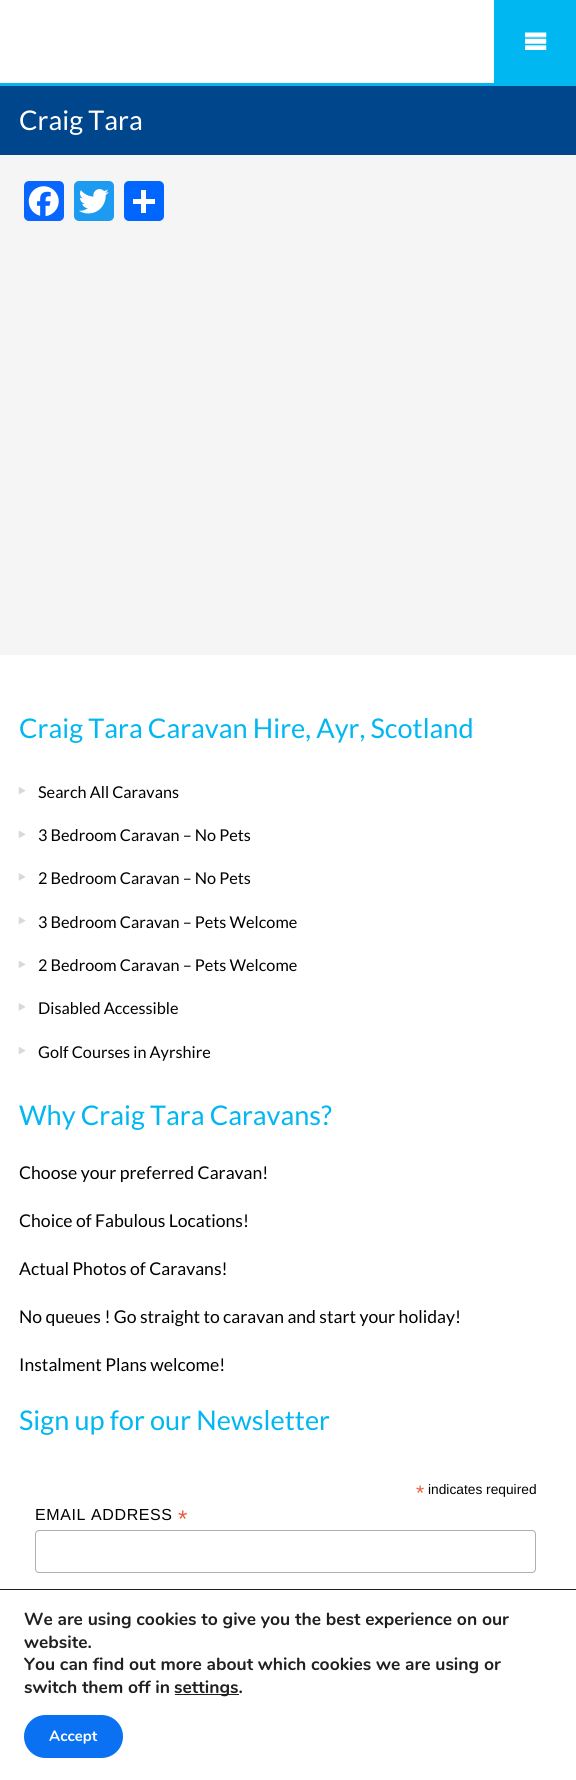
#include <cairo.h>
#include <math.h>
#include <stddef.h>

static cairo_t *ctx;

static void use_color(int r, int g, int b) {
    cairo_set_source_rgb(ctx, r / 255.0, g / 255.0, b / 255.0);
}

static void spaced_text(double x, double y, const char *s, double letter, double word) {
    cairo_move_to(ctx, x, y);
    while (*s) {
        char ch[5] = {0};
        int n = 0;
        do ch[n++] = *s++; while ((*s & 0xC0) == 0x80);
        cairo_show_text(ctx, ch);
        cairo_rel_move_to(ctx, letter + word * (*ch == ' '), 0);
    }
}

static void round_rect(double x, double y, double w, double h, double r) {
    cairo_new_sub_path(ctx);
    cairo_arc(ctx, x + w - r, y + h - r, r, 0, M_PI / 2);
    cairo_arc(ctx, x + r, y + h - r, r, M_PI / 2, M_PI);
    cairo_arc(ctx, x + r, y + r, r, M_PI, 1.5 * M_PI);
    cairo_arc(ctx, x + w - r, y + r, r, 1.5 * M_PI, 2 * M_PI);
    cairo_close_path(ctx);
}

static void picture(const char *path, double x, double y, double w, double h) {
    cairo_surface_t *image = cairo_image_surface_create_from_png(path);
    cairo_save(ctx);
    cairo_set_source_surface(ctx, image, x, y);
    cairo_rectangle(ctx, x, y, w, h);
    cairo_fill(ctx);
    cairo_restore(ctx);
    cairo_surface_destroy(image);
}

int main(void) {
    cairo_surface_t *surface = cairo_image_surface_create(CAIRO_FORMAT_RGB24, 576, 1780);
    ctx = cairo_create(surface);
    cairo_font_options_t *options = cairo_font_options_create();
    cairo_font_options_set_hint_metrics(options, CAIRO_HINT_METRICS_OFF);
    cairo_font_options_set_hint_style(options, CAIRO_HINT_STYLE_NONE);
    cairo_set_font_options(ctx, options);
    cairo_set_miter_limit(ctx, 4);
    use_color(255, 255, 255);
    cairo_paint(ctx);
    use_color(1, 183, 242);
    cairo_rectangle(ctx, 0, 83, 576, 3);
    cairo_fill(ctx);
    cairo_rectangle(ctx, 494, 0, 82, 83);
    cairo_fill(ctx);
    picture("img1.png", 525, 32, 22, 18);
    use_color(0, 70, 140);
    cairo_rectangle(ctx, 0, 86, 576, 69);
    cairo_fill(ctx);
    cairo_select_font_face(ctx, "Lato", CAIRO_FONT_SLANT_NORMAL, CAIRO_FONT_WEIGHT_NORMAL);
    cairo_set_font_size(ctx, 27.1);
    use_color(255, 255, 255);
    cairo_move_to(ctx, 19, 130);
    cairo_show_text(ctx, "Craig Tara");
    use_color(245, 245, 245);
    cairo_rectangle(ctx, 0, 155, 576, 500);
    cairo_fill(ctx);
    use_color(8, 102, 255);
    round_rect(24, 181, 40, 40, 5);
    cairo_fill(ctx);
    picture("img2.png", 28, 186, 31, 31);
    use_color(29, 155, 240);
    round_rect(74, 181, 40, 40, 5);
    cairo_fill(ctx);
    picture("img3.png", 79, 189, 30, 25);
    use_color(1, 102, 255);
    round_rect(124, 181, 40, 40, 5);
    cairo_fill(ctx);
    use_color(255, 255, 255);
    cairo_rectangle(ctx, 141, 190, 5, 23);
    cairo_fill(ctx);
    cairo_rectangle(ctx, 133, 199, 22, 5);
    cairo_fill(ctx);
    use_color(1, 183, 242);
    cairo_move_to(ctx, 19, 738);
    cairo_show_text(ctx, "Craig Tara Caravan Hire, Ayr, Scotland");
    picture("img4.png", 18, 787, 8, 8);
    cairo_set_font_size(ctx, 16.25);
    use_color(0, 0, 0);
    cairo_move_to(ctx, 38, 798);
    cairo_show_text(ctx, "Search All Caravans");
    picture("img5.png", 18, 830, 8, 8);
    cairo_move_to(ctx, 38, 841);
    cairo_show_text(ctx, "3 Bedroom Caravan – No Pets");
    picture("img6.png", 18, 873, 8, 8);
    cairo_move_to(ctx, 38, 884);
    cairo_show_text(ctx, "2 Bedroom Caravan – No Pets");
    picture("img4.png", 18, 917, 8, 8);
    cairo_move_to(ctx, 38, 928);
    cairo_show_text(ctx, "3 Bedroom Caravan – Pets Welcome");
    picture("img5.png", 18, 960, 8, 8);
    cairo_move_to(ctx, 38, 971);
    cairo_show_text(ctx, "2 Bedroom Caravan – Pets Welcome");
    picture("img6.png", 18, 1003, 8, 8);
    cairo_move_to(ctx, 38, 1014);
    cairo_show_text(ctx, "Disabled Accessible");
    picture("img4.png", 18, 1047, 8, 8);
    cairo_move_to(ctx, 38, 1058);
    cairo_show_text(ctx, "Golf Courses in Ayrshire");
    cairo_set_font_size(ctx, 27.1);
    use_color(1, 183, 242);
    cairo_move_to(ctx, 19, 1125);
    cairo_show_text(ctx, "Why Craig Tara Caravans?");
    cairo_set_font_size(ctx, 17.6);
    use_color(0, 0, 0);
    cairo_move_to(ctx, 19, 1179);
    cairo_show_text(ctx, "Choose your preferred Caravan!");
    cairo_move_to(ctx, 19, 1227);
    cairo_show_text(ctx, "Choice of Fabulous Locations!");
    cairo_move_to(ctx, 19, 1275);
    cairo_show_text(ctx, "Actual Photos of Caravans!");
    cairo_move_to(ctx, 19, 1323);
    cairo_show_text(ctx, "No queues ! Go straight to caravan and start your holiday!");
    cairo_move_to(ctx, 19, 1371);
    cairo_show_text(ctx, "Instalment Plans welcome!");
    cairo_set_font_size(ctx, 27.1);
    use_color(1, 183, 242);
    cairo_move_to(ctx, 19, 1430);
    cairo_show_text(ctx, "Sign up for our Newsletter");
    cairo_select_font_face(ctx, "Liberation Sans", CAIRO_FONT_SLANT_NORMAL, CAIRO_FONT_WEIGHT_NORMAL);
    cairo_set_font_size(ctx, 21);
    use_color(232, 92, 65);
    cairo_move_to(ctx, 416, 1500);
    cairo_show_text(ctx, "*");
    cairo_set_font_size(ctx, 13.75);
    use_color(0, 0, 0);
    cairo_move_to(ctx, 428, 1494);
    cairo_show_text(ctx, "indicates required");
    cairo_set_font_size(ctx, 16);
    spaced_text(35, 1520, "EMAIL ADDRESS", 0.6, 0);
    cairo_set_font_size(ctx, 24);
    use_color(232, 92, 65);
    spaced_text(178, 1527, "*", 0.6, 0);
    round_rect(35.5, 1530.5, 500, 42, 3.5);
    use_color(171, 176, 178);
    cairo_set_line_width(ctx, 1);
    cairo_stroke(ctx);
    use_color(32, 32, 32);
    cairo_rectangle(ctx, 0, 1589, 576, 1);
    cairo_fill(ctx);
    cairo_select_font_face(ctx, "Nunito", CAIRO_FONT_SLANT_NORMAL, CAIRO_FONT_WEIGHT_BOLD);
    cairo_set_font_size(ctx, 17.5);
    cairo_move_to(ctx, 24, 1625);
    cairo_show_text(ctx, "We are using cookies to give you the best experience on our");
    cairo_move_to(ctx, 24, 1648);
    cairo_show_text(ctx, "website.");
    cairo_move_to(ctx, 24, 1670);
    cairo_show_text(ctx, "You can find out more about which cookies we are using or");
    cairo_move_to(ctx, 24, 1693);
    cairo_show_text(ctx, "switch them off in");
    cairo_rectangle(ctx, 175, 1694, 64, 1);
    cairo_fill(ctx);
    cairo_move_to(ctx, 174, 1693);
    cairo_show_text(ctx, "settings.");
    use_color(11, 113, 243);
    round_rect(24, 1715, 99, 43, 21.5);
    cairo_fill(ctx);
    cairo_set_font_size(ctx, 15);
    use_color(255, 255, 255);
    cairo_move_to(ctx, 49, 1741);
    cairo_show_text(ctx, "Accept");
    cairo_surface_write_to_png(surface, "result.png");
    cairo_font_options_destroy(options);
    cairo_destroy(ctx);
    cairo_surface_destroy(surface);
    return 0;
}
